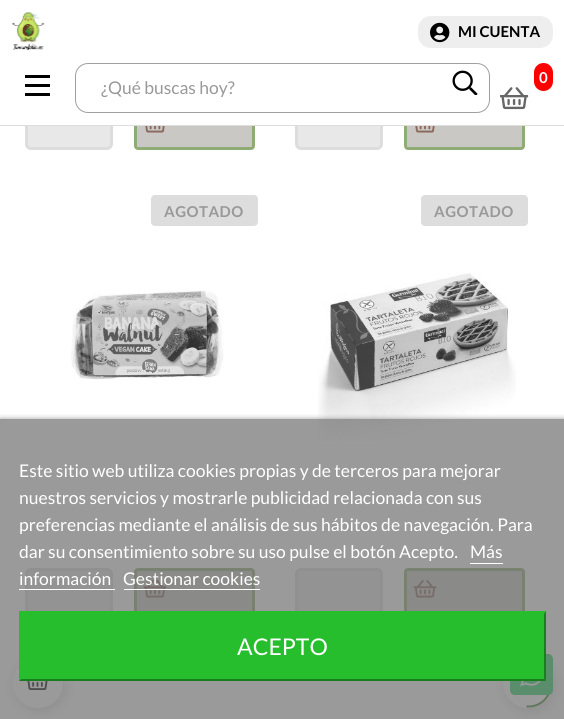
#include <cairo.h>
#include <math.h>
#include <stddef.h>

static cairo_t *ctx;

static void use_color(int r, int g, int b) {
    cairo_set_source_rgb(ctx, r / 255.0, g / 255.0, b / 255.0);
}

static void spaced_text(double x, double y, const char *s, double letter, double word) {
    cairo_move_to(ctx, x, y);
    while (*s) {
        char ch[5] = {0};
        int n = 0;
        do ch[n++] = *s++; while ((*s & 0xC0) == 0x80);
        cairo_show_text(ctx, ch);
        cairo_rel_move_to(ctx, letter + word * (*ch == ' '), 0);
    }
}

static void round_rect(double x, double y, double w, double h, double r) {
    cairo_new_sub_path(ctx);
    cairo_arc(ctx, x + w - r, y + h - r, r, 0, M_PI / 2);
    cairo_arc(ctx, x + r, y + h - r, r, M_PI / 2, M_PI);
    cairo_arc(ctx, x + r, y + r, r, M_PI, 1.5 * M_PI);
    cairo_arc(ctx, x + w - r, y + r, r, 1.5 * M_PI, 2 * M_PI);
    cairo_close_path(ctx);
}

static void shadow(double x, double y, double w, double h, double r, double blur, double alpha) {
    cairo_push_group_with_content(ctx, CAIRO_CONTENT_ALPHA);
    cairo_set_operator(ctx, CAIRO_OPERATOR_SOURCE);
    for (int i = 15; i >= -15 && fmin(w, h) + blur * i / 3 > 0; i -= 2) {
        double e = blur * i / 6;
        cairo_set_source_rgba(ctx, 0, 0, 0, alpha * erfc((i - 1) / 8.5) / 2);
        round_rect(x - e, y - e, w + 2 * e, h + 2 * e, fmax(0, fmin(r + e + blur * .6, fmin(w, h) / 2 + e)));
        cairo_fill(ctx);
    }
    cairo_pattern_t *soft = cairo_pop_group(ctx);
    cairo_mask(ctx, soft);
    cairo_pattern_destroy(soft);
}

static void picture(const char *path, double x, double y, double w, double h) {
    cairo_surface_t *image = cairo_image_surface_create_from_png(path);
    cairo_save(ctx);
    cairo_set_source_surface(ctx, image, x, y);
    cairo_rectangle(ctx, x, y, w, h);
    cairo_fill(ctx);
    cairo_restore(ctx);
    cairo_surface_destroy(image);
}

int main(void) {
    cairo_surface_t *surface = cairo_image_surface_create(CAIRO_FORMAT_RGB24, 564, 719);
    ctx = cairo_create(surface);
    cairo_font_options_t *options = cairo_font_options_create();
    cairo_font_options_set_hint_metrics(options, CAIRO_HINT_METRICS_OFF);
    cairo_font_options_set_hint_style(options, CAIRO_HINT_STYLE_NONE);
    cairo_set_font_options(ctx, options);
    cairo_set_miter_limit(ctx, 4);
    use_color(255, 255, 255);
    cairo_paint(ctx);
    use_color(232, 232, 232);
    round_rect(26.5, 104.5, 85, 44, 4.5);
    cairo_fill_preserve(ctx);
    use_color(221, 221, 221);
    cairo_set_line_width(ctx, 3);
    cairo_stroke(ctx);
    use_color(201, 200, 197);
    round_rect(135.5, 104.5, 118, 44, 2.5);
    cairo_fill_preserve(ctx);
    use_color(144, 172, 118);
    cairo_stroke(ctx);
    use_color(232, 232, 232);
    round_rect(296.5, 104.5, 85, 44, 4.5);
    cairo_fill_preserve(ctx);
    use_color(221, 221, 221);
    cairo_stroke(ctx);
    use_color(201, 200, 197);
    round_rect(405.5, 104.5, 118, 44, 2.5);
    cairo_fill_preserve(ctx);
    use_color(144, 172, 118);
    cairo_stroke(ctx);
    cairo_rectangle(ctx, -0.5, -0.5, 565, 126);
    use_color(221, 221, 221);
    cairo_set_line_width(ctx, 1);
    cairo_stroke(ctx);
    use_color(255, 255, 255);
    cairo_rectangle(ctx, 25, 103, 500, 22);
    cairo_fill(ctx);
    use_color(0, 0, 0);
    cairo_rectangle(ctx, 25, 75, 25, 3);
    cairo_fill(ctx);
    cairo_rectangle(ctx, 25, 93, 25, 3);
    cairo_fill(ctx);
    cairo_rectangle(ctx, 25, 84, 25, 3);
    cairo_fill(ctx);
    picture("img1.png", 12, 12, 33, 38);
    use_color(238, 238, 238);
    round_rect(418, 16, 135, 32, 13);
    cairo_fill(ctx);
    picture("img2.png", 430, 22, 20, 21);
    cairo_select_font_face(ctx, "Lato", CAIRO_FONT_SLANT_NORMAL, CAIRO_FONT_WEIGHT_BOLD);
    cairo_set_font_size(ctx, 15);
    use_color(0, 0, 0);
    cairo_move_to(ctx, 458, 37);
    cairo_show_text(ctx, "MI CUENTA");
    use_color(255, 0, 0);
    round_rect(534, 63, 19, 28, 9.5);
    cairo_fill(ctx);
    use_color(255, 255, 255);
    cairo_move_to(ctx, 539, 83);
    cairo_show_text(ctx, "0");
    picture("img3.png", 500, 87, 29, 23);
    round_rect(75.5, 63.5, 414, 49, 12.5);
    use_color(159, 159, 159);
    cairo_stroke(ctx);
    cairo_select_font_face(ctx, "Lato", CAIRO_FONT_SLANT_NORMAL, CAIRO_FONT_WEIGHT_NORMAL);
    cairo_set_font_size(ctx, 17.5);
    use_color(153, 153, 153);
    cairo_move_to(ctx, 101, 94);
    cairo_show_text(ctx, "¿Qué buscas hoy?");
    picture("img4.png", 452, 70, 26, 25);
    picture("img5.png", 145, 126, 20, 7);
    picture("img5.png", 415, 126, 20, 7);
    use_color(221, 221, 221);
    round_rect(151, 195, 107, 31, 4);
    cairo_fill(ctx);
    cairo_select_font_face(ctx, "Lato", CAIRO_FONT_SLANT_NORMAL, CAIRO_FONT_WEIGHT_BOLD);
    cairo_set_font_size(ctx, 15);
    use_color(153, 153, 153);
    spaced_text(164, 217, "AGOTADO", 0.5, 0);
    picture("img6.png", 71, 290, 153, 90);
    use_color(232, 232, 232);
    round_rect(26.5, 569.5, 85, 44, 4.5);
    cairo_fill_preserve(ctx);
    use_color(221, 221, 221);
    cairo_set_line_width(ctx, 3);
    cairo_stroke(ctx);
    use_color(201, 200, 197);
    round_rect(135.5, 569.5, 118, 44, 2.5);
    cairo_fill_preserve(ctx);
    use_color(144, 172, 118);
    cairo_stroke(ctx);
    picture("img7.png", 143, 580, 24, 18);
    use_color(221, 221, 221);
    round_rect(421, 195, 107, 31, 4);
    cairo_fill(ctx);
    use_color(153, 153, 153);
    spaced_text(434, 217, "AGOTADO", 0.5, 0);
    picture("img8.png", 318, 273, 198, 168);
    use_color(232, 232, 232);
    round_rect(296.5, 569.5, 85, 44, 4.5);
    cairo_fill_preserve(ctx);
    use_color(221, 221, 221);
    cairo_stroke(ctx);
    use_color(201, 200, 197);
    round_rect(405.5, 569.5, 118, 44, 2.5);
    cairo_fill_preserve(ctx);
    use_color(144, 172, 118);
    cairo_stroke(ctx);
    picture("img7.png", 413, 580, 24, 18);
    use_color(0, 0, 0);
    shadow(505, 661, 50, 50, 25, 6, 0.15);
    use_color(255, 255, 255);
    cairo_arc(ctx, 528, 683, 25, 0, 2 * M_PI);
    cairo_fill(ctx);
    cairo_new_path(ctx);
    cairo_move_to(ctx, 527.5, 658.5);
    cairo_curve_to(ctx, 560, 658.5, 558.5, 708, 526.5, 706.5);
    use_color(68, 142, 51);
    cairo_set_line_width(ctx, 2);
    cairo_stroke(ctx);
    use_color(0, 0, 0);
    shadow(15, 661, 50, 50, 25, 6, 0.15);
    use_color(255, 255, 255);
    cairo_arc(ctx, 38, 683, 25, 0, 2 * M_PI);
    cairo_fill(ctx);
    picture("img9.png", 27, 681, 21, 9);
    use_color(37, 211, 102);
    round_rect(510, 654, 43, 41, 5);
    cairo_fill(ctx);
    picture("img10.png", 520, 681, 21, 6);
    cairo_save(ctx);
    cairo_rectangle(ctx, 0, 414, 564, 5);
    cairo_clip(ctx);
    use_color(112, 112, 112);
    shadow(0, 420, 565, 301, 0, 3, 1);
    cairo_restore(ctx);
    cairo_set_source_rgba(ctx, 0.439, 0.439, 0.439, 0.7);
    cairo_rectangle(ctx, 0, 419, 564, 300);
    cairo_fill(ctx);
    cairo_select_font_face(ctx, "Lato", CAIRO_FONT_SLANT_NORMAL, CAIRO_FONT_WEIGHT_NORMAL);
    cairo_set_font_size(ctx, 17.5);
    use_color(255, 255, 255);
    cairo_move_to(ctx, 19, 477);
    cairo_show_text(ctx, "Este sitio web utiliza cookies propias y de terceros para mejorar");
    cairo_move_to(ctx, 19, 504);
    cairo_show_text(ctx, "nuestros servicios y mostrarle publicidad relacionada con sus");
    cairo_move_to(ctx, 19, 531);
    cairo_show_text(ctx, "preferencias mediante el análisis de sus hábitos de navegación. Para");
    cairo_move_to(ctx, 19, 558);
    cairo_show_text(ctx, "dar su consentimiento sobre su uso pulse el botón Acepto.");
    cairo_move_to(ctx, 470, 558);
    cairo_show_text(ctx, "Más");
    cairo_rectangle(ctx, 470, 563, 33, 1);
    cairo_fill(ctx);
    cairo_move_to(ctx, 19, 585);
    cairo_show_text(ctx, "información");
    cairo_rectangle(ctx, 19, 589, 96, 1);
    cairo_fill(ctx);
    cairo_move_to(ctx, 123, 585);
    cairo_show_text(ctx, "Gestionar cookies");
    cairo_rectangle(ctx, 124, 589, 136, 1);
    cairo_fill(ctx);
    use_color(38, 190, 45);
    cairo_rectangle(ctx, 19, 611, 527, 70);
    cairo_fill(ctx);
    use_color(25, 127, 30);
    cairo_new_path(ctx);
    cairo_move_to(ctx, 546, 611);
    cairo_line_to(ctx, 546, 681);
    cairo_line_to(ctx, 544, 679);
    cairo_line_to(ctx, 544, 614);
    cairo_close_path(ctx);
    cairo_fill(ctx);
    cairo_new_path(ctx);
    cairo_move_to(ctx, 546, 681);
    cairo_line_to(ctx, 19, 681);
    cairo_line_to(ctx, 21, 679);
    cairo_line_to(ctx, 544, 679);
    cairo_close_path(ctx);
    cairo_fill(ctx);
    use_color(38, 190, 45);
    cairo_new_path(ctx);
    cairo_move_to(ctx, 19, 681);
    cairo_line_to(ctx, 19, 611);
    cairo_line_to(ctx, 21, 614);
    cairo_line_to(ctx, 21, 679);
    cairo_close_path(ctx);
    cairo_fill(ctx);
    cairo_set_font_size(ctx, 23);
    use_color(255, 255, 255);
    cairo_move_to(ctx, 237, 655);
    cairo_show_text(ctx, "ACEPTO");
    cairo_surface_write_to_png(surface, "result.png");
    cairo_font_options_destroy(options);
    cairo_destroy(ctx);
    cairo_surface_destroy(surface);
    return 0;
}
